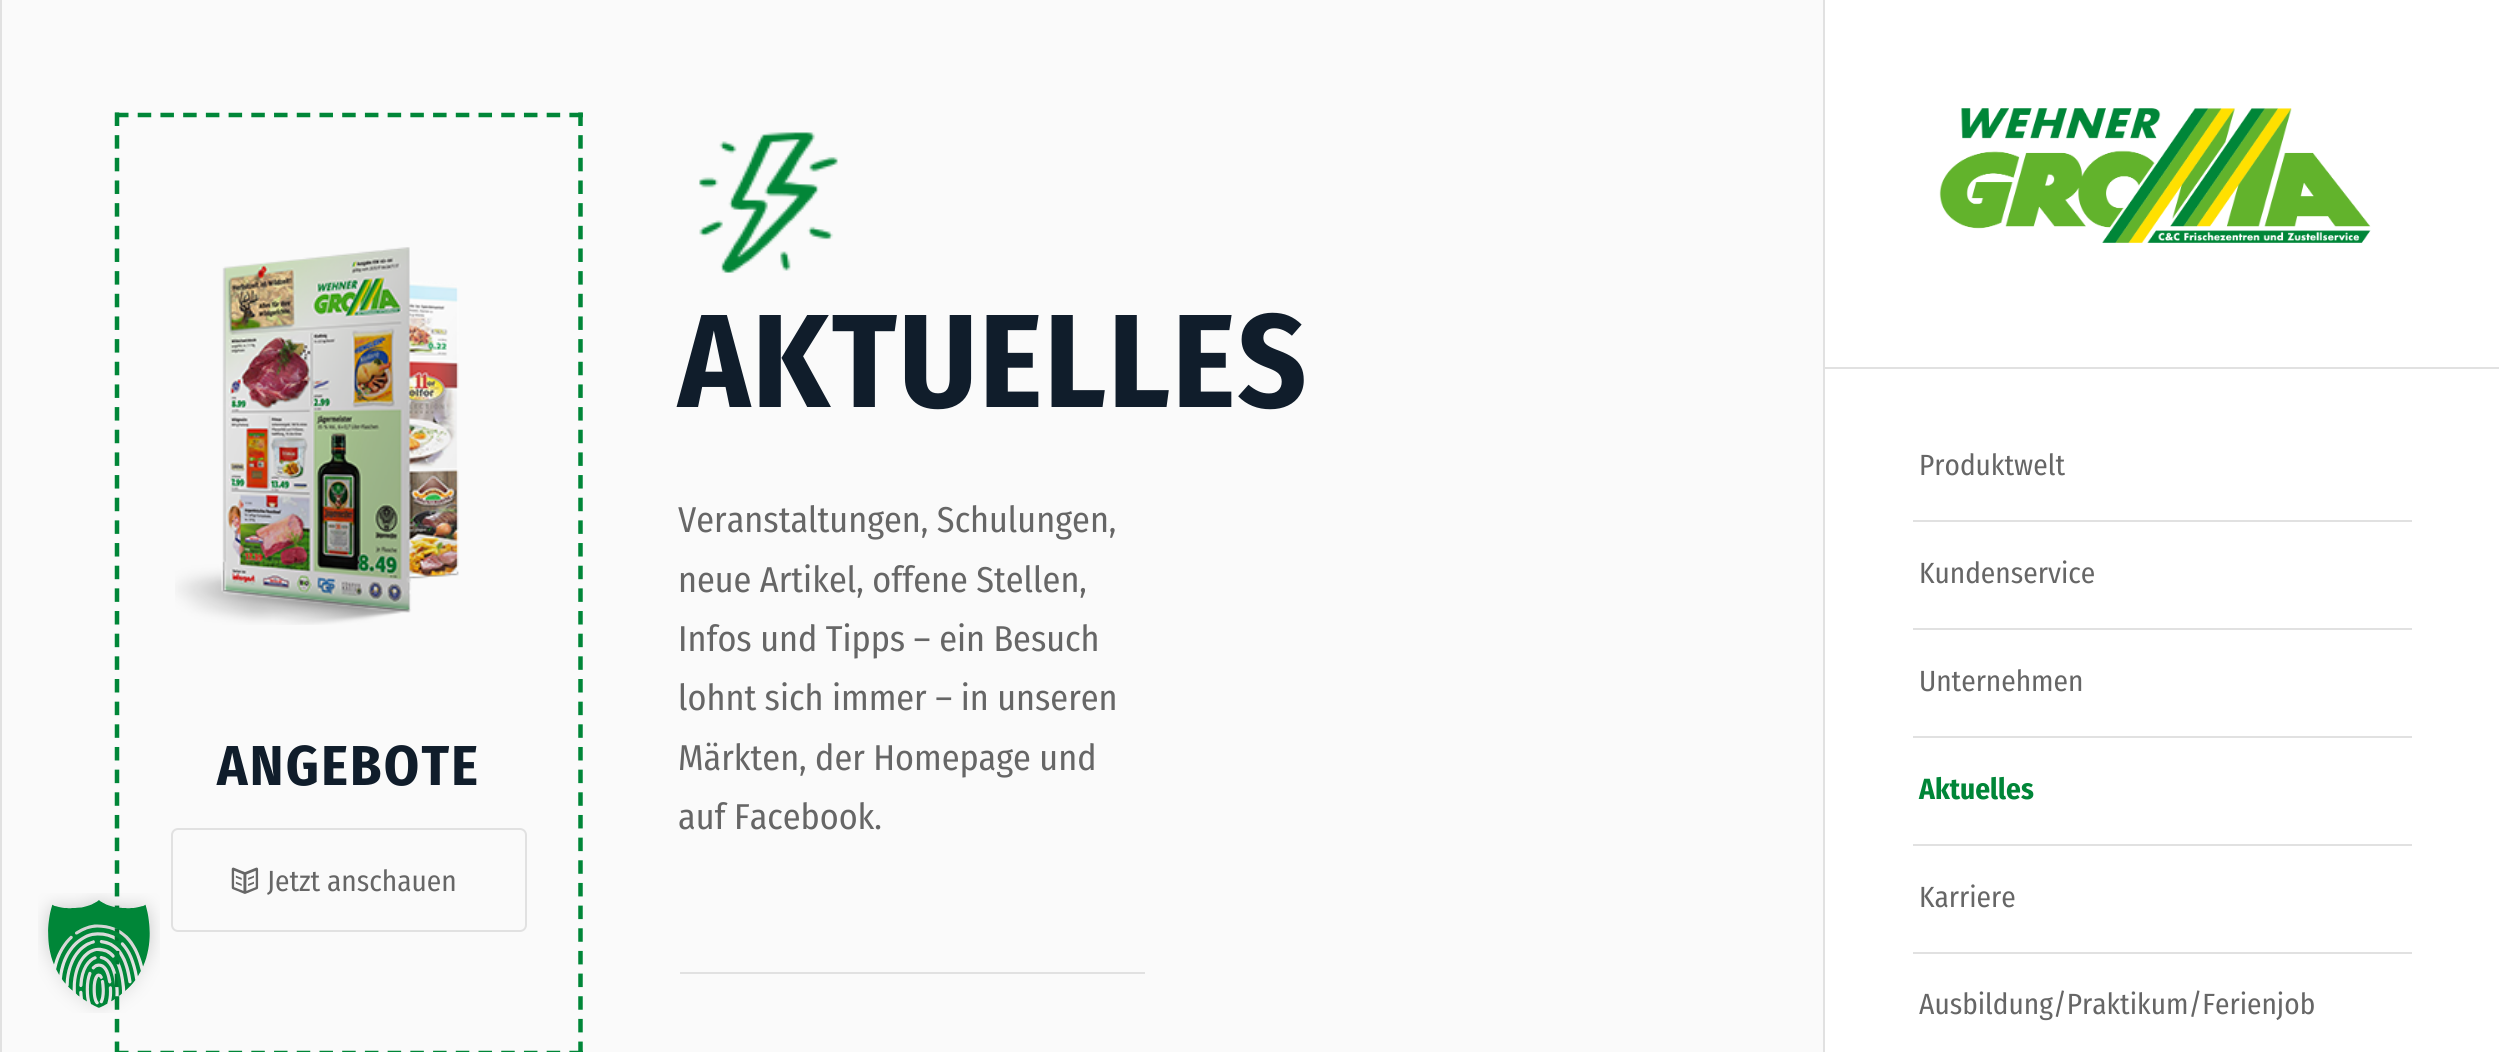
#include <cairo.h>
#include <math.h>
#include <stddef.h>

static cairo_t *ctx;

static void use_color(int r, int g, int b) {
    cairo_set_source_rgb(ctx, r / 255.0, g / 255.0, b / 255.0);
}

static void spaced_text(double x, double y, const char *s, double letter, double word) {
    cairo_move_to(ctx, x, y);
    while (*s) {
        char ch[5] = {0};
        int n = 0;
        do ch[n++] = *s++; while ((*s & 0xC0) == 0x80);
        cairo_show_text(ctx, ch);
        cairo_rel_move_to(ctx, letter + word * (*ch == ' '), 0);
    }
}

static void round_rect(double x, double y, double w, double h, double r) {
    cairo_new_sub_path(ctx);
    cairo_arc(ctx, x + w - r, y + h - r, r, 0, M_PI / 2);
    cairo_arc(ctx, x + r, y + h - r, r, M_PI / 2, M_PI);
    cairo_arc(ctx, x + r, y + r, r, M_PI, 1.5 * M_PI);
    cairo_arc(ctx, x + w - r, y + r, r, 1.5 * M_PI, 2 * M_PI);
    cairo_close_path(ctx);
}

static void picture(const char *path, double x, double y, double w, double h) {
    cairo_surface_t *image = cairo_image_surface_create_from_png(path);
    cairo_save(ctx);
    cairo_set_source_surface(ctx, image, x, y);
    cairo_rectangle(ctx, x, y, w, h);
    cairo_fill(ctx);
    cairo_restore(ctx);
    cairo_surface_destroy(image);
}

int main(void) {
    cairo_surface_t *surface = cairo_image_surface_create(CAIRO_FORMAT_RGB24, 2499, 1052);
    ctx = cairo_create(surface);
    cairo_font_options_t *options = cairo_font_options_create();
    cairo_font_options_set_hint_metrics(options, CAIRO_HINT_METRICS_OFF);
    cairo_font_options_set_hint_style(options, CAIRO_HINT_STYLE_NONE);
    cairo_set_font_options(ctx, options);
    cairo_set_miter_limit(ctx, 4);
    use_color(255, 255, 255);
    cairo_paint(ctx);
    use_color(250, 250, 250);
    cairo_rectangle(ctx, 2, 0, 1821, 1052);
    cairo_fill(ctx);
    cairo_new_path(ctx);
    cairo_move_to(ctx, 115, 115);
    cairo_line_to(ctx, 583, 115);
    use_color(0, 134, 56);
    cairo_set_line_width(ctx, 4.5);
    cairo_set_dash(ctx, (double[]){13.5, 9.22}, 2, 0);
    cairo_stroke(ctx);
    cairo_new_path(ctx);
    cairo_move_to(ctx, 580.5, 112.5);
    cairo_line_to(ctx, 580.5, 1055);
    cairo_set_dash(ctx, (double[]){13.5, 9.16}, 2, 0);
    cairo_stroke(ctx);
    cairo_new_path(ctx);
    cairo_move_to(ctx, 115, 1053);
    cairo_line_to(ctx, 583, 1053);
    cairo_set_dash(ctx, (double[]){13.5, 9.22}, 2, 0);
    cairo_stroke(ctx);
    cairo_new_path(ctx);
    cairo_move_to(ctx, 117, 112.5);
    cairo_line_to(ctx, 117, 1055);
    cairo_set_dash(ctx, (double[]){13.5, 9.16}, 2, 0);
    cairo_stroke(ctx);
    picture("img1.png", 38, 893, 122, 120);
    use_color(225, 225, 225);
    cairo_rectangle(ctx, 1823, 0, 2, 1052);
    cairo_fill(ctx);
    cairo_rectangle(ctx, 0, 0, 2, 1052);
    cairo_fill(ctx);
    picture("img2.png", 175, 247, 284, 378);
    cairo_select_font_face(ctx, "Fira Sans Condensed", CAIRO_FONT_SLANT_NORMAL, CAIRO_FONT_WEIGHT_BOLD);
    cairo_set_font_size(ctx, 56.25);
    use_color(16, 29, 43);
    spaced_text(217, 785, "ANGEBOTE", 2.25, 0);
    round_rect(172, 829, 354, 102, 6);
    use_color(225, 225, 225);
    cairo_set_line_width(ctx, 2);
    cairo_set_dash(ctx, NULL, 0, 0);
    cairo_stroke(ctx);
    picture("img3.png", 231, 867, 28, 27);
    cairo_select_font_face(ctx, "Fira Sans Condensed", CAIRO_FONT_SLANT_NORMAL, CAIRO_FONT_WEIGHT_NORMAL);
    cairo_set_font_size(ctx, 29.25);
    use_color(102, 102, 102);
    cairo_move_to(ctx, 267, 891);
    cairo_show_text(ctx, "Jetzt anschauen");
    picture("img4.png", 699, 132, 139, 141);
    cairo_select_font_face(ctx, "Fira Sans Condensed", CAIRO_FONT_SLANT_NORMAL, CAIRO_FONT_WEIGHT_BOLD);
    cairo_set_font_size(ctx, 132.75);
    use_color(16, 29, 43);
    spaced_text(678, 407, "AKTUELLES", 2.25, 0);
    cairo_select_font_face(ctx, "Fira Sans Condensed", CAIRO_FONT_SLANT_NORMAL, CAIRO_FONT_WEIGHT_NORMAL);
    cairo_set_font_size(ctx, 36);
    use_color(102, 102, 102);
    cairo_move_to(ctx, 678, 532);
    cairo_show_text(ctx, "Veranstaltungen, Schulungen,");
    cairo_move_to(ctx, 678, 592);
    cairo_show_text(ctx, "neue Artikel, offene Stellen,");
    cairo_move_to(ctx, 678, 651);
    cairo_show_text(ctx, "Infos und Tipps – ein Besuch");
    cairo_move_to(ctx, 678, 710);
    cairo_show_text(ctx, "lohnt sich immer – in unseren");
    cairo_move_to(ctx, 678, 770);
    cairo_show_text(ctx, "Märkten, der Homepage und");
    cairo_move_to(ctx, 678, 829);
    cairo_show_text(ctx, "auf Facebook.");
    use_color(225, 225, 225);
    cairo_rectangle(ctx, 680, 972, 465, 2);
    cairo_fill(ctx);
    cairo_rectangle(ctx, 1825, 367, 674, 2);
    cairo_fill(ctx);
    picture("img5.png", 1939, 108, 432, 135);
    cairo_rectangle(ctx, 1913, 520, 499, 2);
    cairo_fill(ctx);
    cairo_set_font_size(ctx, 29.25);
    use_color(102, 102, 102);
    cairo_move_to(ctx, 1919, 475);
    cairo_show_text(ctx, "Produktwelt");
    use_color(225, 225, 225);
    cairo_rectangle(ctx, 1913, 628, 499, 2);
    cairo_fill(ctx);
    use_color(102, 102, 102);
    cairo_move_to(ctx, 1919, 583);
    cairo_show_text(ctx, "Kundenservice");
    use_color(225, 225, 225);
    cairo_rectangle(ctx, 1913, 736, 499, 2);
    cairo_fill(ctx);
    use_color(102, 102, 102);
    cairo_move_to(ctx, 1919, 691);
    cairo_show_text(ctx, "Unternehmen");
    use_color(225, 225, 225);
    cairo_rectangle(ctx, 1913, 844, 499, 2);
    cairo_fill(ctx);
    cairo_select_font_face(ctx, "Fira Sans Condensed", CAIRO_FONT_SLANT_NORMAL, CAIRO_FONT_WEIGHT_BOLD);
    use_color(0, 134, 56);
    cairo_move_to(ctx, 1919, 799);
    cairo_show_text(ctx, "Aktuelles");
    use_color(225, 225, 225);
    cairo_rectangle(ctx, 1913, 952, 499, 2);
    cairo_fill(ctx);
    cairo_select_font_face(ctx, "Fira Sans Condensed", CAIRO_FONT_SLANT_NORMAL, CAIRO_FONT_WEIGHT_NORMAL);
    use_color(102, 102, 102);
    cairo_move_to(ctx, 1919, 907);
    cairo_show_text(ctx, "Karriere");
    cairo_move_to(ctx, 1919, 1014);
    cairo_show_text(ctx, "Ausbildung/Praktikum/Ferienjob");
    cairo_surface_write_to_png(surface, "result.png");
    cairo_font_options_destroy(options);
    cairo_destroy(ctx);
    cairo_surface_destroy(surface);
    return 0;
}
